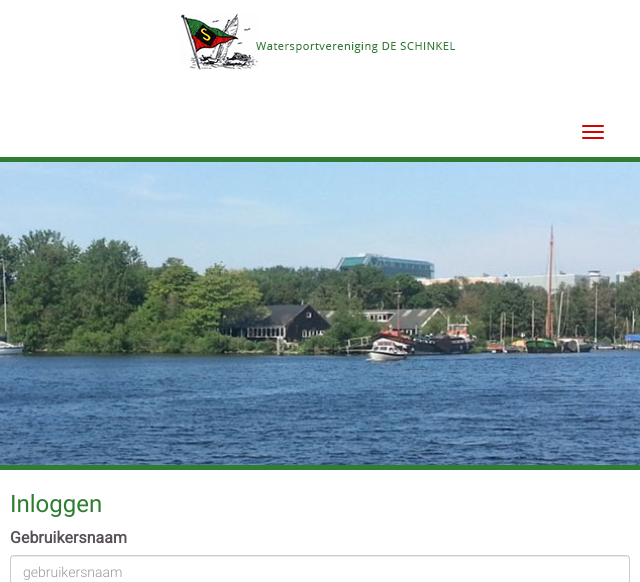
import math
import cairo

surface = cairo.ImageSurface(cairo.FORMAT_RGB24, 640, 582)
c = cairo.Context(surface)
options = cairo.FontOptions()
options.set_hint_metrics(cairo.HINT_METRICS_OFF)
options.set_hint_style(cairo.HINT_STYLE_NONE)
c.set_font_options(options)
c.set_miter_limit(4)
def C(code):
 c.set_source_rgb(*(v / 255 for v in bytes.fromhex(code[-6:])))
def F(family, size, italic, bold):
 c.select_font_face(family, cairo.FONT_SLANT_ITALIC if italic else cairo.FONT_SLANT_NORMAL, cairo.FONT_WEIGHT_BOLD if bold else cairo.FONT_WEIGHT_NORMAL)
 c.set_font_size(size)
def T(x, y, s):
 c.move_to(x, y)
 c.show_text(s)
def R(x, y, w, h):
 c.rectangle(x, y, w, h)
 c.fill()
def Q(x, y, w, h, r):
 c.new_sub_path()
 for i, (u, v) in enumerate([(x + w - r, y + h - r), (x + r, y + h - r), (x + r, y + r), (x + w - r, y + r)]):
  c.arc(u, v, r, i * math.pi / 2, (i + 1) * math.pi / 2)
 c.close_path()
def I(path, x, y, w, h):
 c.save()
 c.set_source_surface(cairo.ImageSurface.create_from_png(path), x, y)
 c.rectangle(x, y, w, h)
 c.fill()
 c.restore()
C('ffffff')
c.paint()
I('1.png',179,13,277,57)
C('d50000')
Q(582,125,22,2,1)
c.fill()
Q(582,131,22,2,1)
c.fill()
Q(582,137,22,2,1)
c.fill()
I('2.png',0,162,640,303)
C('2e7d32')
R(0,157,640,5)
R(0,465,640,5)
F('Roboto',24,0,0)
T(10,512,'Inloggen')
F('Roboto',16,0,1)
C('575057')
T(10,543,'Gebruikersnaam')
C('ececec')
c.new_path()
c.move_to(14,557)
c.line_to(626,557)
c.curve_to(628,557,629,558,629,560)
c.line_to(629,559)
c.curve_to(629,557,628,556,626,556)
c.line_to(14,556)
c.curve_to(12,556,11,557,11,559)
c.line_to(11,560)
c.curve_to(11,558,12,557,14,557)
c.close_path()
c.fill()
Q(10.5,555.5,619,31,3.5)
C('cccccc')
c.set_line_width(1)
c.stroke()
F('Roboto Light',14,0,0)
C('999999')
T(23,577,'gebruikersnaam')
surface.write_to_png('o.png')
